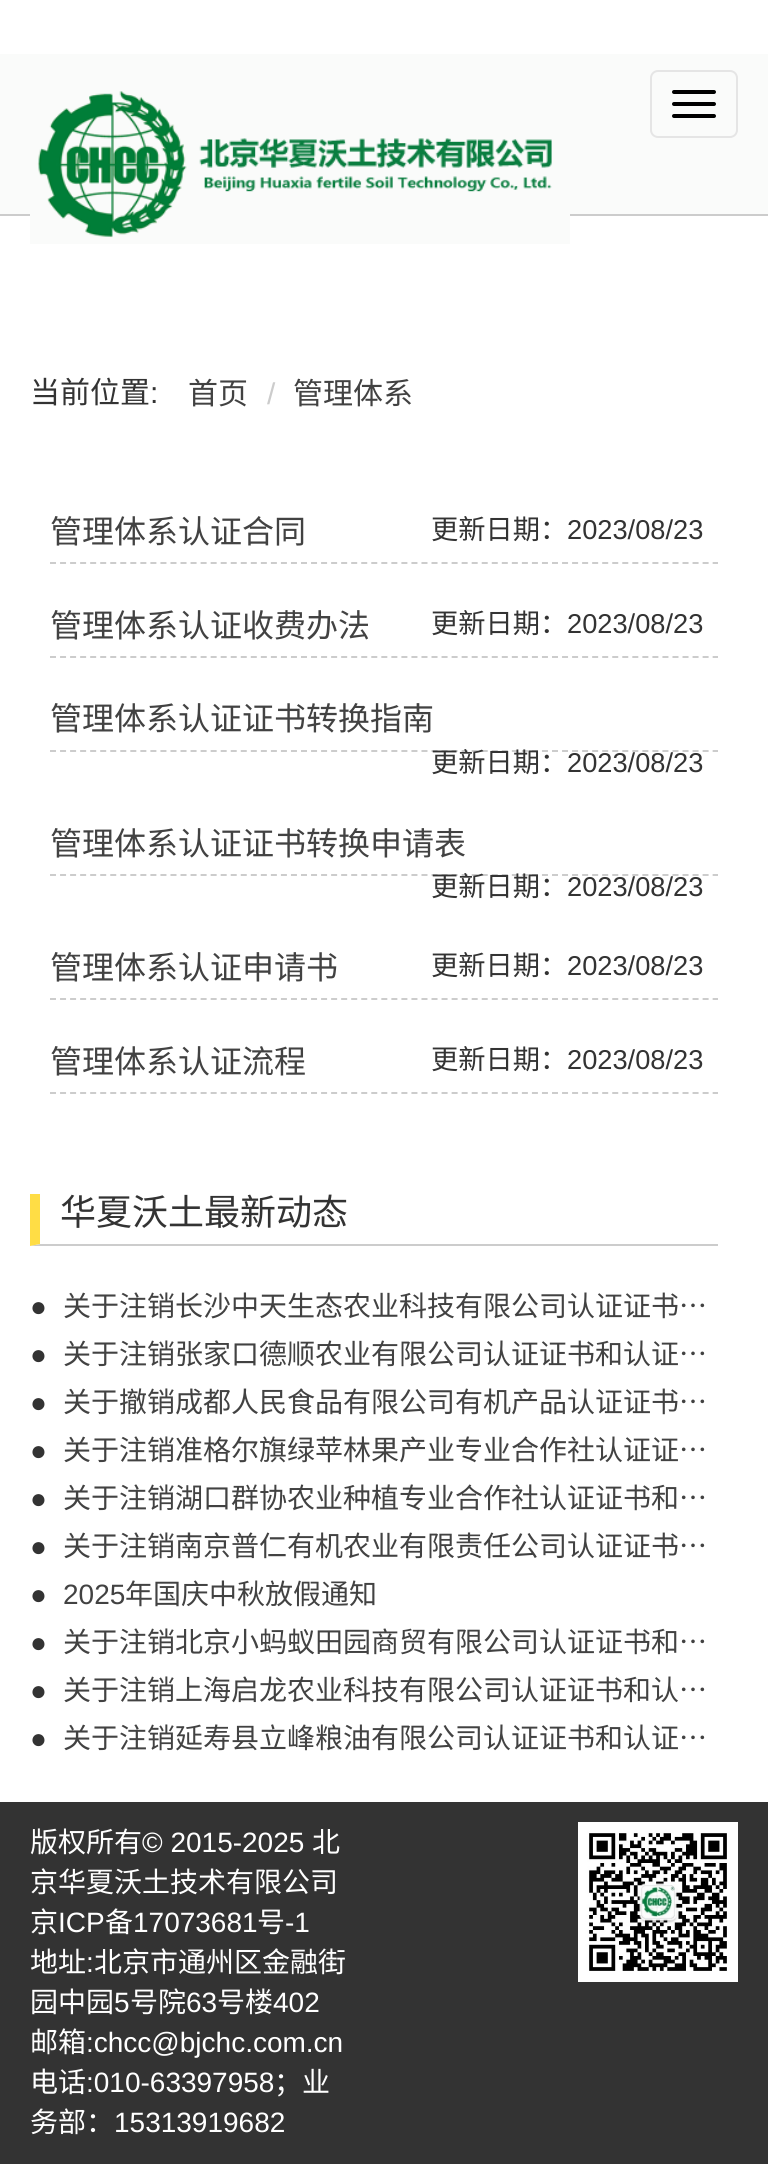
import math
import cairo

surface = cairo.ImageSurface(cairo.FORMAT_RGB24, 768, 2164)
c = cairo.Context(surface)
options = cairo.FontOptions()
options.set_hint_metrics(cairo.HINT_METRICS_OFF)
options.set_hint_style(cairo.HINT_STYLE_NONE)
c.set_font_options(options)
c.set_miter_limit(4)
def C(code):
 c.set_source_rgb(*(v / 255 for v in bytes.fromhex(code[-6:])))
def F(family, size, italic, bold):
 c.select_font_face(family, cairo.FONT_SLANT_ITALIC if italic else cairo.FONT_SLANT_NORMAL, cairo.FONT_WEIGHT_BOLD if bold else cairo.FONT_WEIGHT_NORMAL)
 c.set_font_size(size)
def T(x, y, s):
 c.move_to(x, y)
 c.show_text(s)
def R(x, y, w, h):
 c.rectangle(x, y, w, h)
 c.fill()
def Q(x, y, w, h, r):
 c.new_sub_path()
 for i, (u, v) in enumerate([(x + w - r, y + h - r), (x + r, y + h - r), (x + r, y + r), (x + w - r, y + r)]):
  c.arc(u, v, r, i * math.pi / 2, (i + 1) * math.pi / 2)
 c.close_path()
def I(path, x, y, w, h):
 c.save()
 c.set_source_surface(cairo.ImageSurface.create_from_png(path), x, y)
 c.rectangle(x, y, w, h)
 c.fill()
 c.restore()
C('ffffff')
c.paint()
C('fafbfa')
R(0,54,768,160)
C('cccccc')
R(0,214,768,2)
I('1.png',30,91,540,153)
Q(651,71,86,66,7)
C('e5e5e5')
c.stroke()
C('000000')
Q(672,90,44,4,2)
c.fill()
Q(672,102,44,4,2)
c.fill()
Q(672,114,44,4,2)
c.fill()
F('Noto Sans CJK SC',30,0,0)
C('333333')
T(30,403,'当前位置')
F('Liberation Sans',30,0,0)
T(150,403,':')
F('Noto Sans CJK SC',30,0,0)
C('424242')
T(188,404,'首页')
F('Liberation Sans',30,0,0)
C('cccccc')
T(267,404,'/')
F('Noto Sans CJK SC',30,0,0)
C('424242')
T(293,404,'管理体系')
c.new_path()
c.move_to(50,563)
c.line_to(718,563)
C('cccccc')
c.set_dash([6,4.04])
c.stroke()
F('Noto Sans CJK SC',32,0,0)
C('424242')
T(50,543,'管理体系认证合同')
F('Noto Sans CJK SC',27.25,0,0)
C('333333')
T(431,539,'更新日期：')
F('Liberation Sans',27.25,0,0)
T(567,539,'2023/08/23')
c.new_path()
c.move_to(50,657)
c.line_to(718,657)
C('cccccc')
c.stroke()
F('Noto Sans CJK SC',32,0,0)
C('424242')
T(50,637,'管理体系认证收费办法')
F('Noto Sans CJK SC',27.25,0,0)
C('333333')
T(431,633,'更新日期：')
F('Liberation Sans',27.25,0,0)
T(567,633,'2023/08/23')
c.new_path()
c.move_to(50,751)
c.line_to(718,751)
C('cccccc')
c.stroke()
F('Noto Sans CJK SC',32,0,0)
C('424242')
T(50,730,'管理体系认证证书转换指南')
F('Noto Sans CJK SC',27.25,0,0)
C('333333')
T(431,772,'更新日期：')
F('Liberation Sans',27.25,0,0)
T(567,772,'2023/08/23')
c.new_path()
c.move_to(50,875)
c.line_to(718,875)
C('cccccc')
c.stroke()
F('Noto Sans CJK SC',32,0,0)
C('424242')
T(50,855,'管理体系认证证书转换申请表')
F('Noto Sans CJK SC',27.25,0,0)
C('333333')
T(431,896,'更新日期：')
F('Liberation Sans',27.25,0,0)
T(567,896,'2023/08/23')
c.new_path()
c.move_to(50,999)
c.line_to(718,999)
C('cccccc')
c.stroke()
F('Noto Sans CJK SC',32,0,0)
C('424242')
T(50,979,'管理体系认证申请书')
F('Noto Sans CJK SC',27.25,0,0)
C('333333')
T(431,975,'更新日期：')
F('Liberation Sans',27.25,0,0)
T(567,975,'2023/08/23')
c.new_path()
c.move_to(50,1093)
c.line_to(718,1093)
C('cccccc')
c.stroke()
F('Noto Sans CJK SC',32,0,0)
C('424242')
T(50,1073,'管理体系认证流程')
F('Noto Sans CJK SC',27.25,0,0)
C('333333')
T(431,1069,'更新日期：')
F('Liberation Sans',27.25,0,0)
T(567,1069,'2023/08/23')
C('cccccc')
c.new_path()
c.move_to(718,1246)
c.line_to(30,1246)
c.line_to(40,1244)
c.line_to(718,1244)
c.close_path()
c.fill()
C('ffdd45')
c.new_path()
c.move_to(30,1246)
c.line_to(30,1194)
c.line_to(40,1194)
c.line_to(40,1244)
c.close_path()
c.fill()
F('Noto Sans CJK SC',36,0,0)
C('333333')
T(60,1225,'华夏沃土最新动态')
F('Liberation Sans',28,0,0)
T(30,1316,'●')
F('Noto Sans CJK SC',28,0,0)
C('424242')
T(63,1316,'关于注销长沙中天生态农业科技有限公司认证证书…')
F('Liberation Sans',28,0,0)
C('333333')
T(30,1364,'●')
F('Noto Sans CJK SC',28,0,0)
C('424242')
T(63,1364,'关于注销张家口德顺农业有限公司认证证书和认证…')
F('Liberation Sans',28,0,0)
C('333333')
T(30,1412,'●')
F('Noto Sans CJK SC',28,0,0)
C('424242')
T(63,1412,'关于撤销成都人民食品有限公司有机产品认证证书…')
F('Liberation Sans',28,0,0)
C('333333')
T(30,1460,'●')
F('Noto Sans CJK SC',28,0,0)
C('424242')
T(63,1460,'关于注销准格尔旗绿苹林果产业专业合作社认证证…')
F('Liberation Sans',28,0,0)
C('333333')
T(30,1508,'●')
F('Noto Sans CJK SC',28,0,0)
C('424242')
T(63,1508,'关于注销湖口群协农业种植专业合作社认证证书和…')
F('Liberation Sans',28,0,0)
C('333333')
T(30,1556,'●')
F('Noto Sans CJK SC',28,0,0)
C('424242')
T(63,1556,'关于注销南京普仁有机农业有限责任公司认证证书…')
F('Liberation Sans',28,0,0)
C('333333')
T(30,1604,'●')
C('424242')
T(63,1604,'2025')
F('Noto Sans CJK SC',28,0,0)
T(125,1604,'年国庆中秋放假通知')
F('Liberation Sans',28,0,0)
C('333333')
T(30,1652,'●')
F('Noto Sans CJK SC',28,0,0)
C('424242')
T(63,1652,'关于注销北京小蚂蚁田园商贸有限公司认证证书和…')
F('Liberation Sans',28,0,0)
C('333333')
T(30,1700,'●')
F('Noto Sans CJK SC',28,0,0)
C('424242')
T(63,1700,'关于注销上海启龙农业科技有限公司认证证书和认…')
F('Liberation Sans',28,0,0)
C('333333')
T(30,1748,'●')
F('Noto Sans CJK SC',28,0,0)
C('424242')
T(63,1748,'关于注销延寿县立峰粮油有限公司认证证书和认证…')
C('333333')
R(0,1802,768,362)
C('ffffff')
T(30,1852,'版权所有')
F('Liberation Sans',28,0,0)
T(142,1852,'© 2015-2025')
F('Noto Sans CJK SC',28,0,0)
T(312,1852,'北')
T(30,1892,'京华夏沃土技术有限公司')
T(30,1932,'京')
F('Liberation Sans',28,0,0)
T(58,1932,'ICP')
F('Noto Sans CJK SC',28,0,0)
T(105,1932,'备')
F('Liberation Sans',28,0,0)
T(133,1932,'17073681')
F('Noto Sans CJK SC',28,0,0)
T(257,1932,'号')
F('Liberation Sans',28,0,0)
T(285,1932,'-1')
F('Noto Sans CJK SC',28,0,0)
T(30,1972,'地址')
F('Liberation Sans',28,0,0)
T(86,1972,':')
F('Noto Sans CJK SC',28,0,0)
T(94,1972,'北京市通州区金融街')
T(30,2012,'园中园')
F('Liberation Sans',28,0,0)
T(114,2012,'5')
F('Noto Sans CJK SC',28,0,0)
T(130,2012,'号院')
F('Liberation Sans',28,0,0)
T(186,2012,'63')
F('Noto Sans CJK SC',28,0,0)
T(217,2012,'号楼')
F('Liberation Sans',28,0,0)
T(273,2012,'402')
F('Noto Sans CJK SC',28,0,0)
T(30,2052,'邮箱')
F('Liberation Sans',28,0,0)
T(86,2052,':chcc@bjchc.com.cn')
F('Noto Sans CJK SC',28,0,0)
T(30,2092,'电话')
F('Liberation Sans',28,0,0)
T(86,2092,':010-63397958')
F('Noto Sans CJK SC',28,0,0)
T(274,2092,'；业')
T(30,2132,'务部：')
F('Liberation Sans',28,0,0)
T(114,2132,'15313919682')
I('2.png',578,1822,160,160)
surface.write_to_png('o.png')
